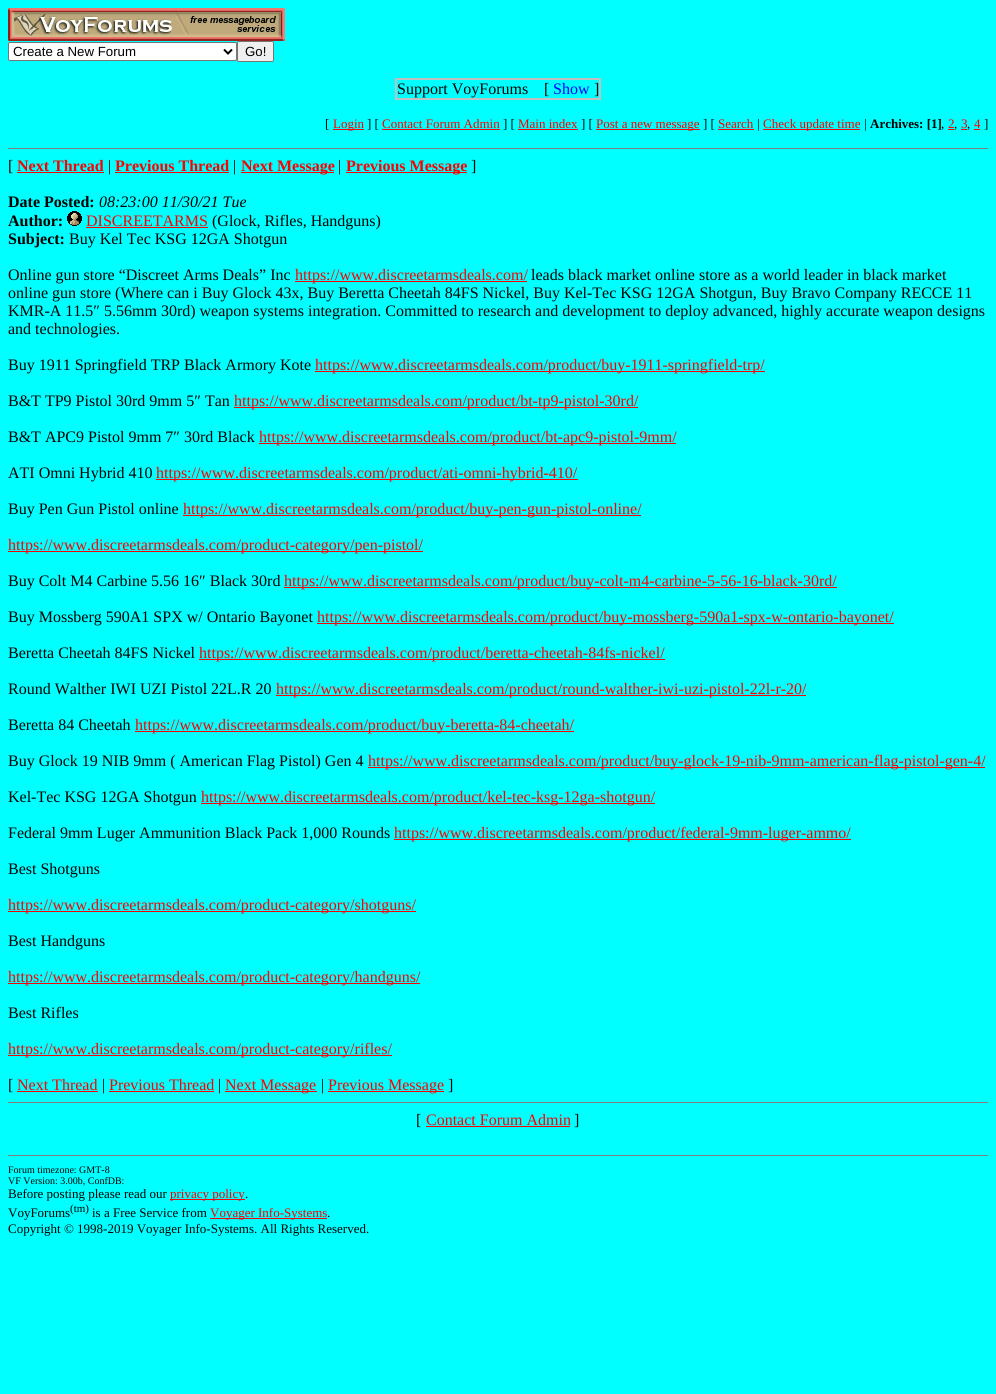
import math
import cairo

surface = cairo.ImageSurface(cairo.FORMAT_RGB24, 996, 1394)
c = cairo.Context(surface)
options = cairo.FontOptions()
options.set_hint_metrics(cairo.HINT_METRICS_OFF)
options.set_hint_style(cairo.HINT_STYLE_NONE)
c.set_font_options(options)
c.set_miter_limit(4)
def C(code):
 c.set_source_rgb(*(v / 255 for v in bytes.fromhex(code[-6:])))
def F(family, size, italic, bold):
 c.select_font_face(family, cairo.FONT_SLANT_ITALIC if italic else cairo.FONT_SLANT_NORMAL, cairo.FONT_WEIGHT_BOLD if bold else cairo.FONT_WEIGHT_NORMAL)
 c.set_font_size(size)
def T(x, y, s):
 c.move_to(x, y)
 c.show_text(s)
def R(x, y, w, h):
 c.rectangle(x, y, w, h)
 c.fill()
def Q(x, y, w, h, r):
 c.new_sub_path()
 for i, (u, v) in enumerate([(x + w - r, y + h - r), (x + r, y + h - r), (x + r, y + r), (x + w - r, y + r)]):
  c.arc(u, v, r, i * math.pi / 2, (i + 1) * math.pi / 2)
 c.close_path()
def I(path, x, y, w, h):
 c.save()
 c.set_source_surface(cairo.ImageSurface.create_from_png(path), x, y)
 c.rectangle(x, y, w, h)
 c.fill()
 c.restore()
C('00ffff')
c.paint()
I('1.png',8,8,277,33)
C('ffffff')
Q(8.5,42.5,228,18,1.5)
c.fill_preserve()
C('767676')
c.set_line_width(1)
c.stroke()
c.new_path()
c.move_to(224,49.5)
c.line_to(228,53.5)
c.line_to(232,49.5)
C('000000')
c.set_line_width(2)
c.stroke()
F('Liberation Sans',13.25,0,0)
T(13,56,'Create a New Forum')
C('efefef')
Q(237.5,41.5,36,20,1.5)
c.fill_preserve()
C('767676')
c.set_line_width(1)
c.stroke()
C('000000')
T(245,56,'Go!')
c.rectangle(396,79,204,20)
C('c0c0c0')
c.set_line_width(2)
c.stroke()
F('Liberation Serif',16,0,0)
C('000000')
T(397,94,'Support VoyForums')
T(544,94,'[')
C('0000ff')
T(553,94,'Show')
C('000000')
T(594,94,']')
F('Liberation Serif',13,0,0)
T(325,128,'[')
C('ff0000')
R(333,129,31,1)
T(333,128,'Login')
C('000000')
T(367,128,'] [')
C('ff0000')
T(382,128,'Contact Forum Admin')
R(382,129,118,1)
C('000000')
T(503,128,'] [')
C('ff0000')
T(518,128,'Main index')
R(518,129,60,1)
C('000000')
T(581,128,'] [')
C('ff0000')
R(596,129,104,1)
T(596,128,'Post a new message')
C('000000')
T(703,128,'] [')
C('ff0000')
T(718,128,'Search')
R(718,129,36,1)
C('000000')
T(757,128,'|')
C('ff0000')
R(763,129,97,1)
T(763,128,'Check update time')
C('000000')
T(864,128,'|')
F('Liberation Serif',13,0,1)
T(870,128,'Archives: [1]')
F('Liberation Serif',13,0,0)
T(941,128,',')
C('ff0000')
T(948,128,'2')
C('000000')
T(954,128,',')
C('ff0000')
R(948,129,6,1)
T(961,128,'3')
C('000000')
T(967,128,',')
C('ff0000')
R(961,129,6,1)
R(974,129,6,1)
T(974,128,'4')
C('000000')
T(984,128,']')
C('808080')
R(8,148,980,1)
F('Liberation Serif',16,0,0)
C('000000')
T(8,171,'[')
F('Liberation Serif',16,0,1)
C('ff0000')
T(17,171,'Next Thread')
R(17,172,87,1)
F('Liberation Serif',16,0,0)
C('000000')
T(108,171,'|')
F('Liberation Serif',16,0,1)
C('ff0000')
T(115,171,'Previous Thread')
R(115,172,114,1)
F('Liberation Serif',16,0,0)
C('000000')
T(233,171,'|')
C('ff0000')
R(241,172,93,1)
F('Liberation Serif',16,0,1)
T(241,171,'Next Message')
F('Liberation Serif',16,0,0)
C('000000')
T(338,171,'|')
C('ff0000')
R(346,172,121,1)
F('Liberation Serif',16,0,1)
T(346,171,'Previous Message')
F('Liberation Serif',16,0,0)
C('000000')
T(471,171,']')
F('Liberation Serif',16,0,1)
T(8,207,'Date Posted:')
F('Liberation Serif',16,1,0)
T(99,207,'08:23:00 11/30/21 Tue')
F('Liberation Serif',16,0,1)
T(8,226,'Author:')
I('2.png',67,211,15,15)
F('Liberation Serif',16,0,0)
C('ff0000')
T(86,226,'DISCREETARMS')
R(86,227,122,1)
C('000000')
T(212,226,'(Glock, Rifles, Handguns)')
F('Liberation Serif',16,0,1)
T(8,244,'Subject:')
F('Liberation Serif',16,0,0)
T(69,244,'Buy Kel Tec KSG 12GA Shotgun')
T(8,280,'Online gun store “Discreet Arms Deals” Inc')
C('ff0000')
R(295,281,232,1)
T(295,280,'https://www.discreetarmsdeals.com/')
C('000000')
T(531,280,'leads black market online store as a world leader in black market')
T(8,298,'online gun store (Where can i Buy Glock 43x, Buy Beretta Cheetah 84FS Nickel, Buy Kel-Tec KSG 12GA Shotgun, Buy Bravo Company RECCE 11')
T(8,316,'KMR-A 11.5″ 5.56mm 30rd) weapon systems integration. Committed to research and development to deploy advanced, highly accurate weapon designs')
T(8,334,'and technologies.')
T(8,370,'Buy 1911 Springfield TRP Black Armory Kote')
C('ff0000')
R(315,371,450,1)
T(315,370,'https://www.discreetarmsdeals.com/product/buy-1911-springfield-trp/')
C('000000')
T(8,406,'B&T TP9 Pistol 30rd 9mm 5″ Tan')
C('ff0000')
R(234,407,404,1)
T(234,406,'https://www.discreetarmsdeals.com/product/bt-tp9-pistol-30rd/')
C('000000')
T(8,442,'B&T APC9 Pistol 9mm 7″ 30rd Black')
C('ff0000')
R(259,443,417,1)
T(259,442,'https://www.discreetarmsdeals.com/product/bt-apc9-pistol-9mm/')
C('000000')
T(8,478,'ATI Omni Hybrid 410')
C('ff0000')
R(156,479,422,1)
T(156,478,'https://www.discreetarmsdeals.com/product/ati-omni-hybrid-410/')
C('000000')
T(8,514,'Buy Pen Gun Pistol online')
C('ff0000')
R(183,515,458,1)
T(183,514,'https://www.discreetarmsdeals.com/product/buy-pen-gun-pistol-online/')
R(8,551,415,1)
T(8,550,'https://www.discreetarmsdeals.com/product-category/pen-pistol/')
C('000000')
T(8,586,'Buy Colt M4 Carbine 5.56 16″ Black 30rd')
C('ff0000')
R(284,587,553,1)
T(284,586,'https://www.discreetarmsdeals.com/product/buy-colt-m4-carbine-5-56-16-black-30rd/')
C('000000')
T(8,622,'Buy Mossberg 590A1 SPX w/ Ontario Bayonet')
C('ff0000')
R(317,623,577,1)
T(317,622,'https://www.discreetarmsdeals.com/product/buy-mossberg-590a1-spx-w-ontario-bayonet/')
C('000000')
T(8,658,'Beretta Cheetah 84FS Nickel')
C('ff0000')
R(199,659,466,1)
T(199,658,'https://www.discreetarmsdeals.com/product/beretta-cheetah-84fs-nickel/')
C('000000')
T(8,694,'Round Walther IWI UZI Pistol 22L.R 20')
C('ff0000')
R(276,695,530,1)
T(276,694,'https://www.discreetarmsdeals.com/product/round-walther-iwi-uzi-pistol-22l-r-20/')
C('000000')
T(8,730,'Beretta 84 Cheetah')
C('ff0000')
R(135,731,439,1)
T(135,730,'https://www.discreetarmsdeals.com/product/buy-beretta-84-cheetah/')
C('000000')
T(8,766,'Buy Glock 19 NIB 9mm ( American Flag Pistol) Gen 4')
C('ff0000')
R(368,767,617,1)
T(368,766,'https://www.discreetarmsdeals.com/product/buy-glock-19-nib-9mm-american-flag-pistol-gen-4/')
C('000000')
T(8,802,'Kel-Tec KSG 12GA Shotgun')
C('ff0000')
R(201,803,454,1)
T(201,802,'https://www.discreetarmsdeals.com/product/kel-tec-ksg-12ga-shotgun/')
C('000000')
T(8,838,'Federal 9mm Luger Ammunition Black Pack 1,000 Rounds')
C('ff0000')
R(394,839,457,1)
T(394,838,'https://www.discreetarmsdeals.com/product/federal-9mm-luger-ammo/')
C('000000')
T(8,874,'Best Shotguns')
C('ff0000')
R(8,911,408,1)
T(8,910,'https://www.discreetarmsdeals.com/product-category/shotguns/')
C('000000')
T(8,946,'Best Handguns')
C('ff0000')
R(8,983,412,1)
T(8,982,'https://www.discreetarmsdeals.com/product-category/handguns/')
C('000000')
T(8,1018,'Best Rifles')
C('ff0000')
R(8,1055,384,1)
T(8,1054,'https://www.discreetarmsdeals.com/product-category/rifles/')
C('000000')
T(8,1090,'[')
C('ff0000')
T(17,1090,'Next Thread')
R(17,1091,81,1)
C('000000')
T(102,1090,'|')
C('ff0000')
T(109,1090,'Previous Thread')
R(109,1091,105,1)
C('000000')
T(218,1090,'|')
C('ff0000')
R(225,1091,92,1)
T(225,1090,'Next Message')
C('000000')
T(321,1090,'|')
C('ff0000')
R(328,1091,116,1)
T(328,1090,'Previous Message')
C('000000')
T(448,1090,']')
C('808080')
R(8,1102,980,1)
C('000000')
T(416,1125,'[')
C('ff0000')
T(426,1125,'Contact Forum Admin')
R(426,1126,144,1)
C('000000')
T(574,1125,']')
C('808080')
R(8,1155,980,1)
F('Liberation Serif',10,0,0)
C('000000')
T(8,1173,'Forum timezone: GMT-8')
T(8,1184,'VF Version: 3.00b, ConfDB:')
F('Liberation Serif',13,0,0)
T(8,1198,'Before posting please read our')
C('ff0000')
R(170,1199,75,1)
T(170,1198,'privacy policy')
C('000000')
T(245,1198,'.')
T(8,1217,'VoyForums')
F('Liberation Serif',11,0,0)
T(70,1212,'(tm)')
F('Liberation Serif',13,0,0)
T(92,1217,'is a Free Service from')
C('ff0000')
R(210,1218,117,1)
T(210,1217,'Voyager Info-Systems')
C('000000')
T(327,1217,'.')
T(8,1233,'Copyright © 1998-2019 Voyager Info-Systems. All Rights Reserved.')
surface.write_to_png('o.png')
